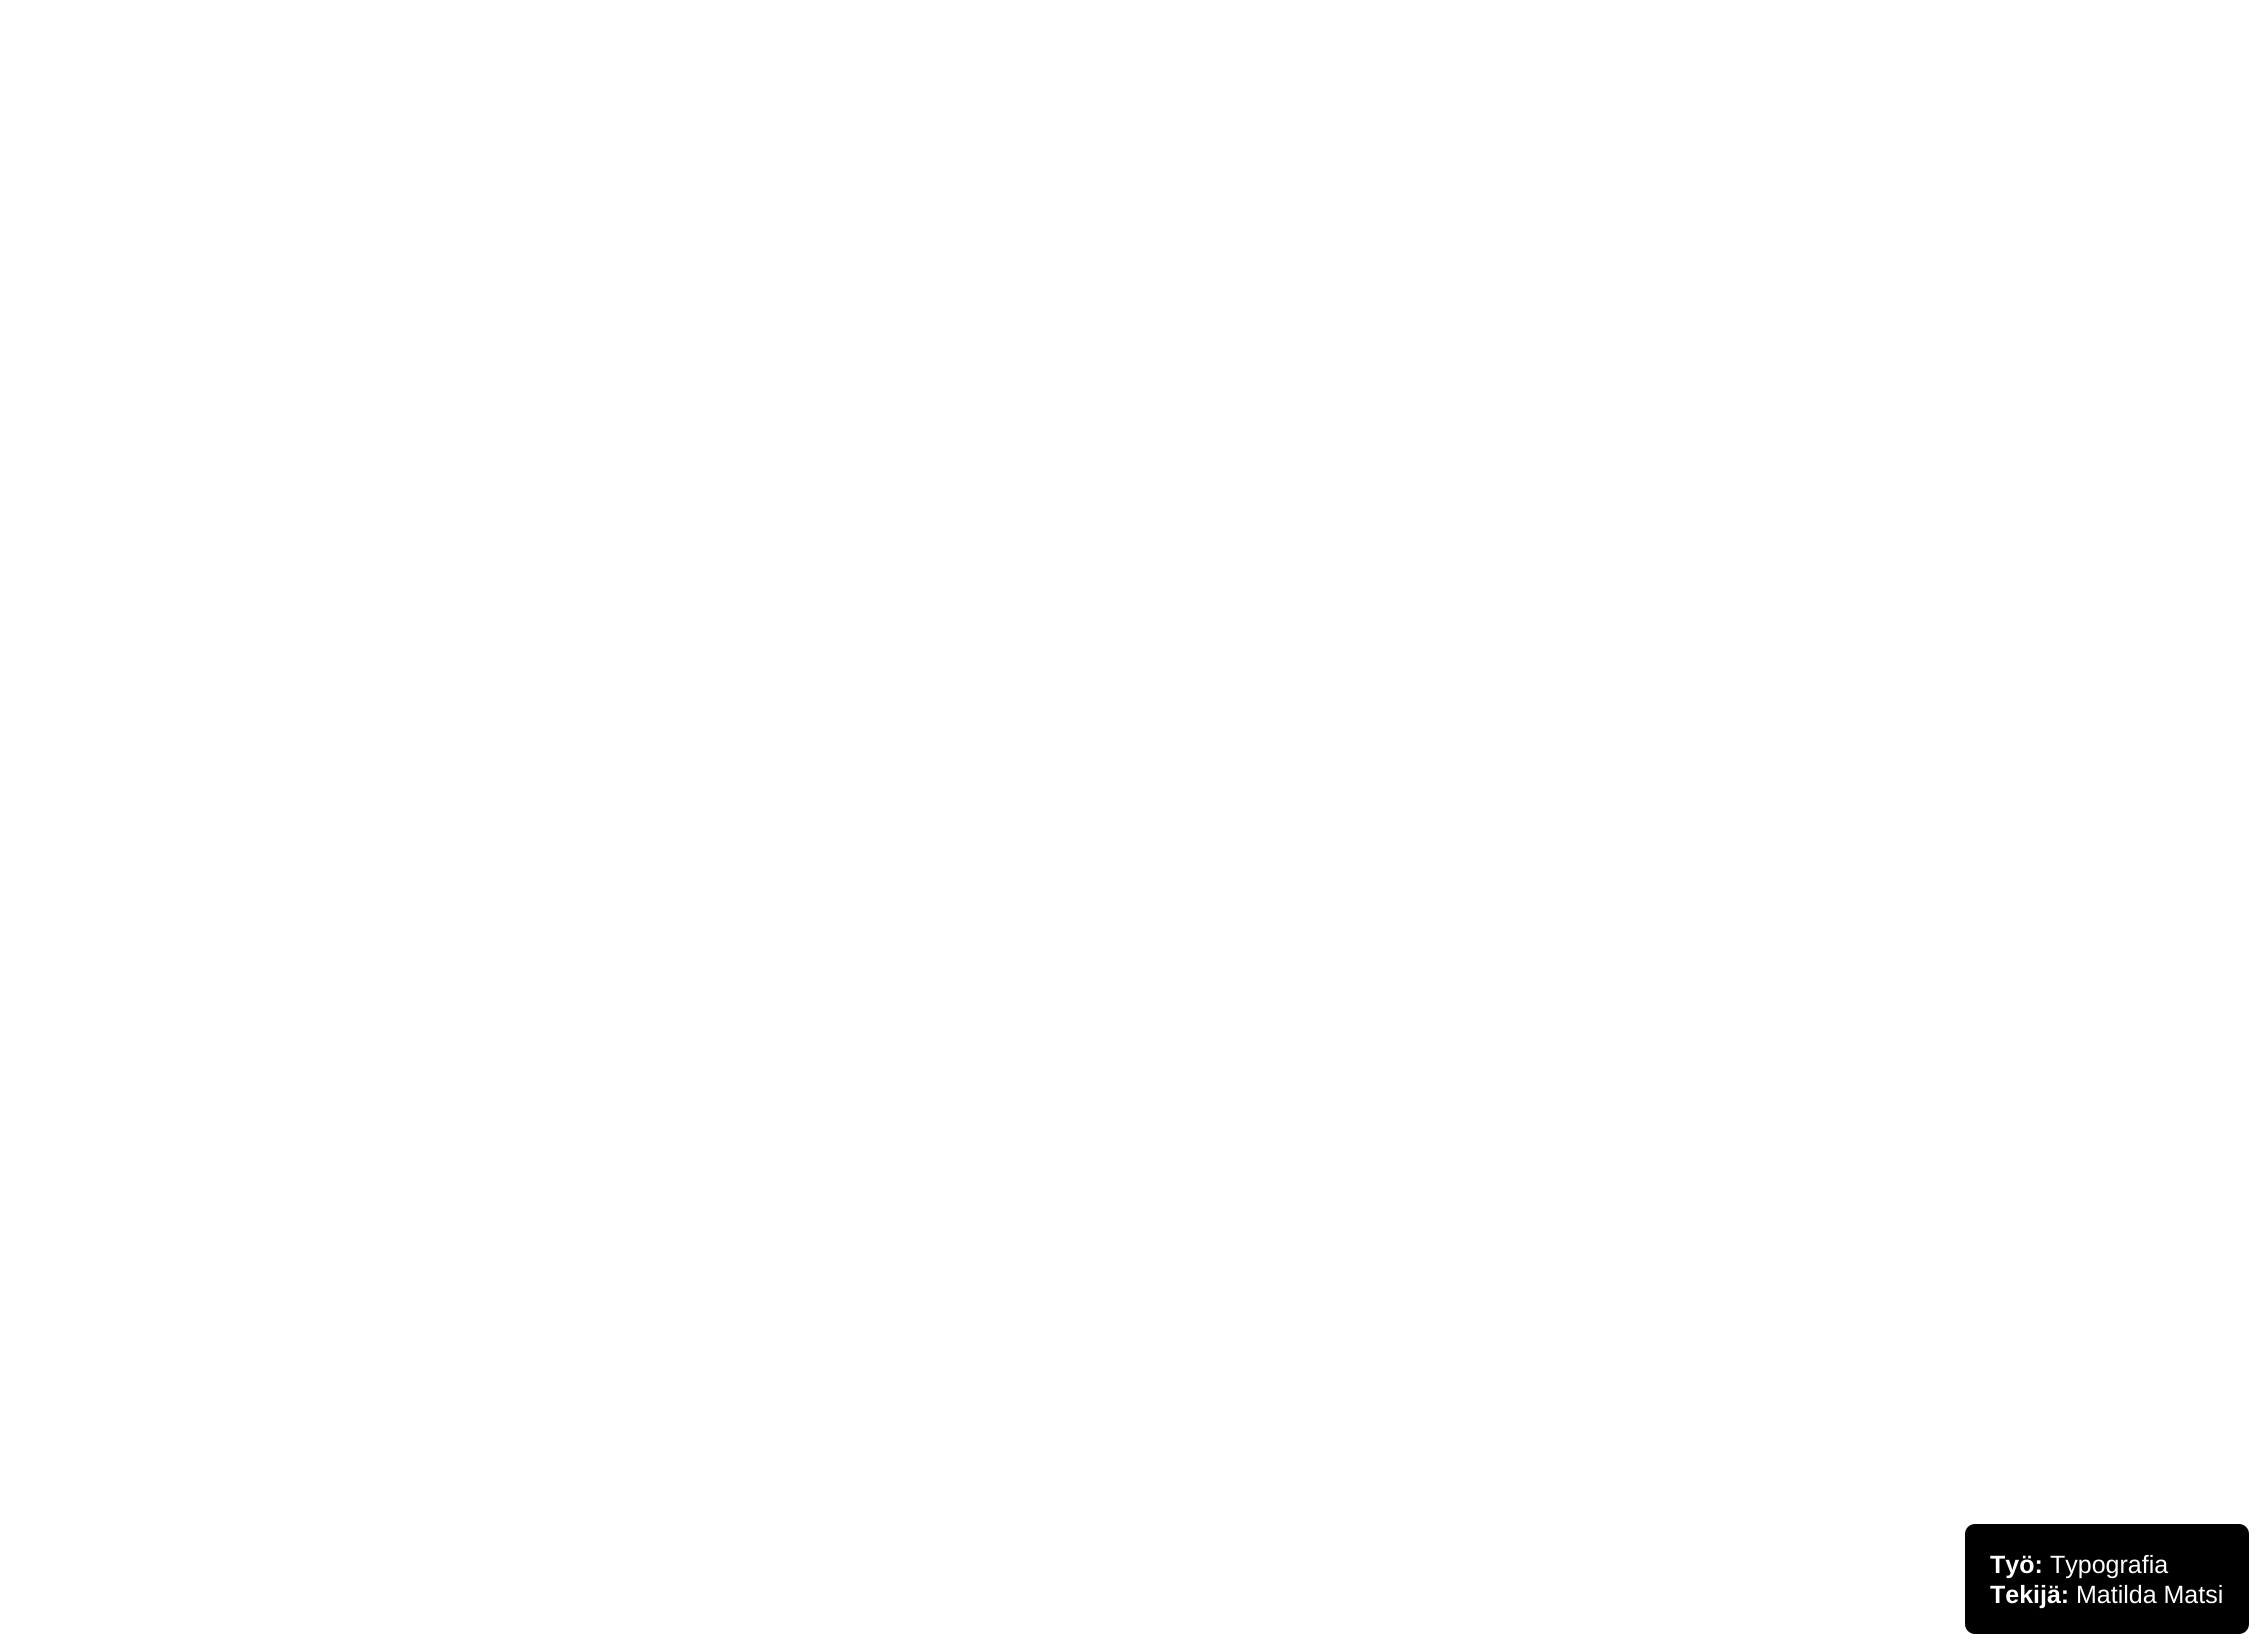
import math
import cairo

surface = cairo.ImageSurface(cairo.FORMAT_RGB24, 2261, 1646)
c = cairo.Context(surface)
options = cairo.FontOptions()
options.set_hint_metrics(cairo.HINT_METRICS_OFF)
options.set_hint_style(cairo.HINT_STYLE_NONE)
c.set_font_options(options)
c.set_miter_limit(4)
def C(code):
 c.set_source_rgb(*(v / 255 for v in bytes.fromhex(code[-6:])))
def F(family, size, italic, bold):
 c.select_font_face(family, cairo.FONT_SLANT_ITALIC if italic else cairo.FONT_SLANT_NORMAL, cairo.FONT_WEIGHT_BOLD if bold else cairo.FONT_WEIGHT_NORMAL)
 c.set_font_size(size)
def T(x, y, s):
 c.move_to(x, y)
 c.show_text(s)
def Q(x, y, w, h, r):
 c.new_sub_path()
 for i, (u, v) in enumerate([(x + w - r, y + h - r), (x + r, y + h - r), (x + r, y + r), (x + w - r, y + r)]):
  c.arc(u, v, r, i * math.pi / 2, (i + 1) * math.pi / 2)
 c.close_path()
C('ffffff')
c.paint()
C('000000')
Q(1965,1524,284,110,10)
c.fill()
F('Liberation Sans',25,0,1)
C('ffffff')
T(1990,1573,'Työ:')
F('Liberation Sans',25,0,0)
T(2050,1573,'Typografia')
F('Liberation Sans',25,0,1)
T(1990,1603,'Tekijä:')
F('Liberation Sans',25,0,0)
T(2076,1603,'Matilda Matsi')
surface.write_to_png('o.png')
